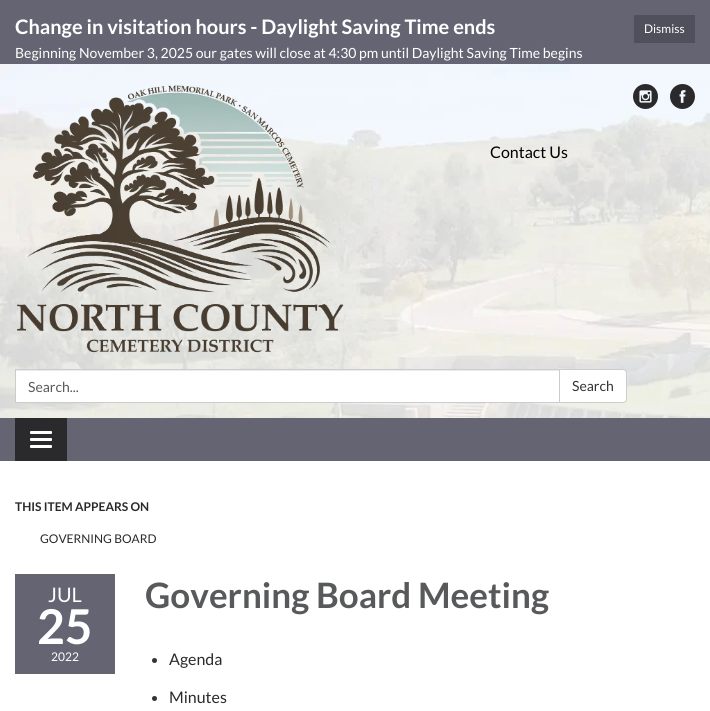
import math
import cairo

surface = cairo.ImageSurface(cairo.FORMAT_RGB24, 710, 711)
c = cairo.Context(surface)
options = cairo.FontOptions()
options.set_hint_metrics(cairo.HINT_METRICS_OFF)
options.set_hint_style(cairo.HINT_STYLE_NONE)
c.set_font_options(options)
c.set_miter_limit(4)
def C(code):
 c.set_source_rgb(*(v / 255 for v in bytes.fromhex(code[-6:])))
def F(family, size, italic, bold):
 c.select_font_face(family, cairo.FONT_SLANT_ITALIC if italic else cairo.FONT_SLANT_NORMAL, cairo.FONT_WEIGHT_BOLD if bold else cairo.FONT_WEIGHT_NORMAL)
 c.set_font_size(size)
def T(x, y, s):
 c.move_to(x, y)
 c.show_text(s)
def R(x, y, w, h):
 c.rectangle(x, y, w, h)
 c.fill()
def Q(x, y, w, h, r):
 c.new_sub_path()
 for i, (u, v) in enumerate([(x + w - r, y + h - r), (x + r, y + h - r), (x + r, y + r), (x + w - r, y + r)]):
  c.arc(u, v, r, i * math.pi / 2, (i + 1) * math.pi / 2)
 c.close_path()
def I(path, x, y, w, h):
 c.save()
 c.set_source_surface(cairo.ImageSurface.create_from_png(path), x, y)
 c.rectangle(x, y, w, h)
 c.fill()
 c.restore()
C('646473')
c.paint()
F('Lato',20,0,1)
C('ffffff')
T(15,34,'Change in visitation hours - Daylight Saving Time ends')
C('50505c')
R(634,15,61,28)
F('Lato',12,0,0)
C('ffffff')
T(644,33,'Dismiss')
F('Lato',14,0,0)
T(15,58,'Beginning November 3, 2025 our gates will close at 4:30 pm until Daylight Saving Time begins')
I('1.png',0,64,710,354)
I('2.png',17,85,327,268)
F('Lato',16,0,0)
C('000000')
T(490,158,'Contact Us')
I('3.png',633,84,25,25)
I('4.png',670,84,25,25)
C('ffffff')
R(16,371,543,31)
C('ececec')
R(16,370,543,1)
c.rectangle(15.5,369.5,544,33)
C('cccccc')
c.set_line_width(1)
c.stroke()
F('Lato',14,0,0)
C('58595b')
T(28,392,'Search...')
C('ffffff')
c.new_path()
c.move_to(559.5,369.5)
c.line_to(623,369.5)
c.curve_to(625,369.5,626.5,371,626.5,373)
c.line_to(626.5,399)
c.curve_to(626.5,401,625,402.5,623,402.5)
c.line_to(559.5,402.5)
c.close_path()
c.fill_preserve()
C('cccccc')
c.stroke()
C('333333')
T(572,391,'Search')
C('2a2a2d')
R(15,418,52,43)
C('ffffff')
Q(30,431,22,3,1)
c.fill()
Q(30,438,22,3,1)
c.fill()
Q(30,445,22,3,1)
c.fill()
R(0,461,710,250)
F('Lato',12,0,1)
C('2a2a2d')
T(15,511,'THIS ITEM APPEARS ON')
F('Lato',12,0,0)
T(40,543,'GOVERNING BOARD')
C('646473')
R(15,574,100,100)
F('Lato',20,0,0)
C('ffffff')
T(48,602,'JUL')
F('Lato',48,0,1)
T(37,644,'25')
F('Lato',12,0,0)
T(51,661,'2022')
F('Lato',35,0,1)
C('58595b')
T(145,608,'Governing Board Meeting')
C('333333')
c.new_path()
c.arc(154.5,660.5,2.5,0,2 * math.pi)
c.fill()
F('Lato',16,0,0)
C('2a2a2d')
T(169,665,'Agenda')
C('333333')
c.new_path()
c.arc(154.5,698.5,2.5,0,2 * math.pi)
c.fill()
C('2a2a2d')
T(169,703,'Minutes')
surface.write_to_png('o.png')
